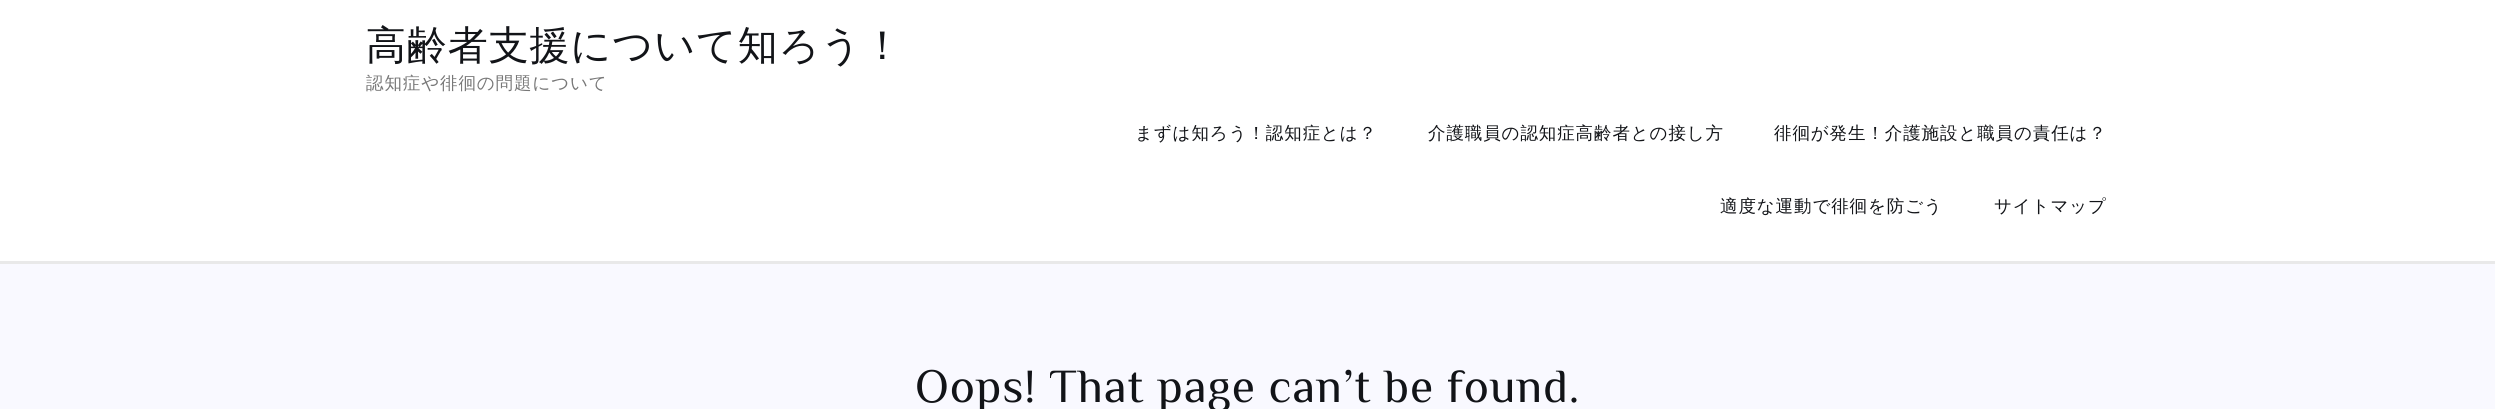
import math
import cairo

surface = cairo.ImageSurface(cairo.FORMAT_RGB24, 2495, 409)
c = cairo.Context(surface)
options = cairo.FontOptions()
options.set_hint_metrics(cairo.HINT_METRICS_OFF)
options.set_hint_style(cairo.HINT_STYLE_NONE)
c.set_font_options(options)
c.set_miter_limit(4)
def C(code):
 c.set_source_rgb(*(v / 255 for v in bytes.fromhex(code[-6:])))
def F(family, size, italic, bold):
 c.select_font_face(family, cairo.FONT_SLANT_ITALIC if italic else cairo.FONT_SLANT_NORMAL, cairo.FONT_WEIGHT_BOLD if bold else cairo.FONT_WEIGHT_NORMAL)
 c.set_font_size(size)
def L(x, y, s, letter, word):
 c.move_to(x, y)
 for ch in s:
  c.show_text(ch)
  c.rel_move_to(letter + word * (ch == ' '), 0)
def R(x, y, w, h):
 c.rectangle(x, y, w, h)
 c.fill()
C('f9f9ff')
c.paint()
C('ffffff')
R(0,0,2495,261)
C('e9e9e9')
R(0,261,2495,3)
F('WenQuanYi Zen Hei Medium',40,0,0)
C('121418')
L(366,59,'高齢者支援について知ろう！',.9,0)
F('WenQuanYi Zen Hei Medium',17.5,0,0)
C('777777')
L(366,89,'認知症や徘徊の問題について',.9,0)
C('121418')
L(1135,139,'まずは知ろう！認知症とは？',.9,0)
L(1428,139,'介護職員の認知症高齢者との接し方',.9,0)
L(1774,139,'徘徊が発生！介護施設と職員の責任は？',.9,0)
L(1720,212,'適度な運動で徘徊を防ごう',.9,0)
L(1994,212,'サイトマップ',.9,0)
F('Philosopher',47.5,0,0)
L(915,402,'Oops! That page can’t be found.',.9,0)
surface.write_to_png('o.png')
